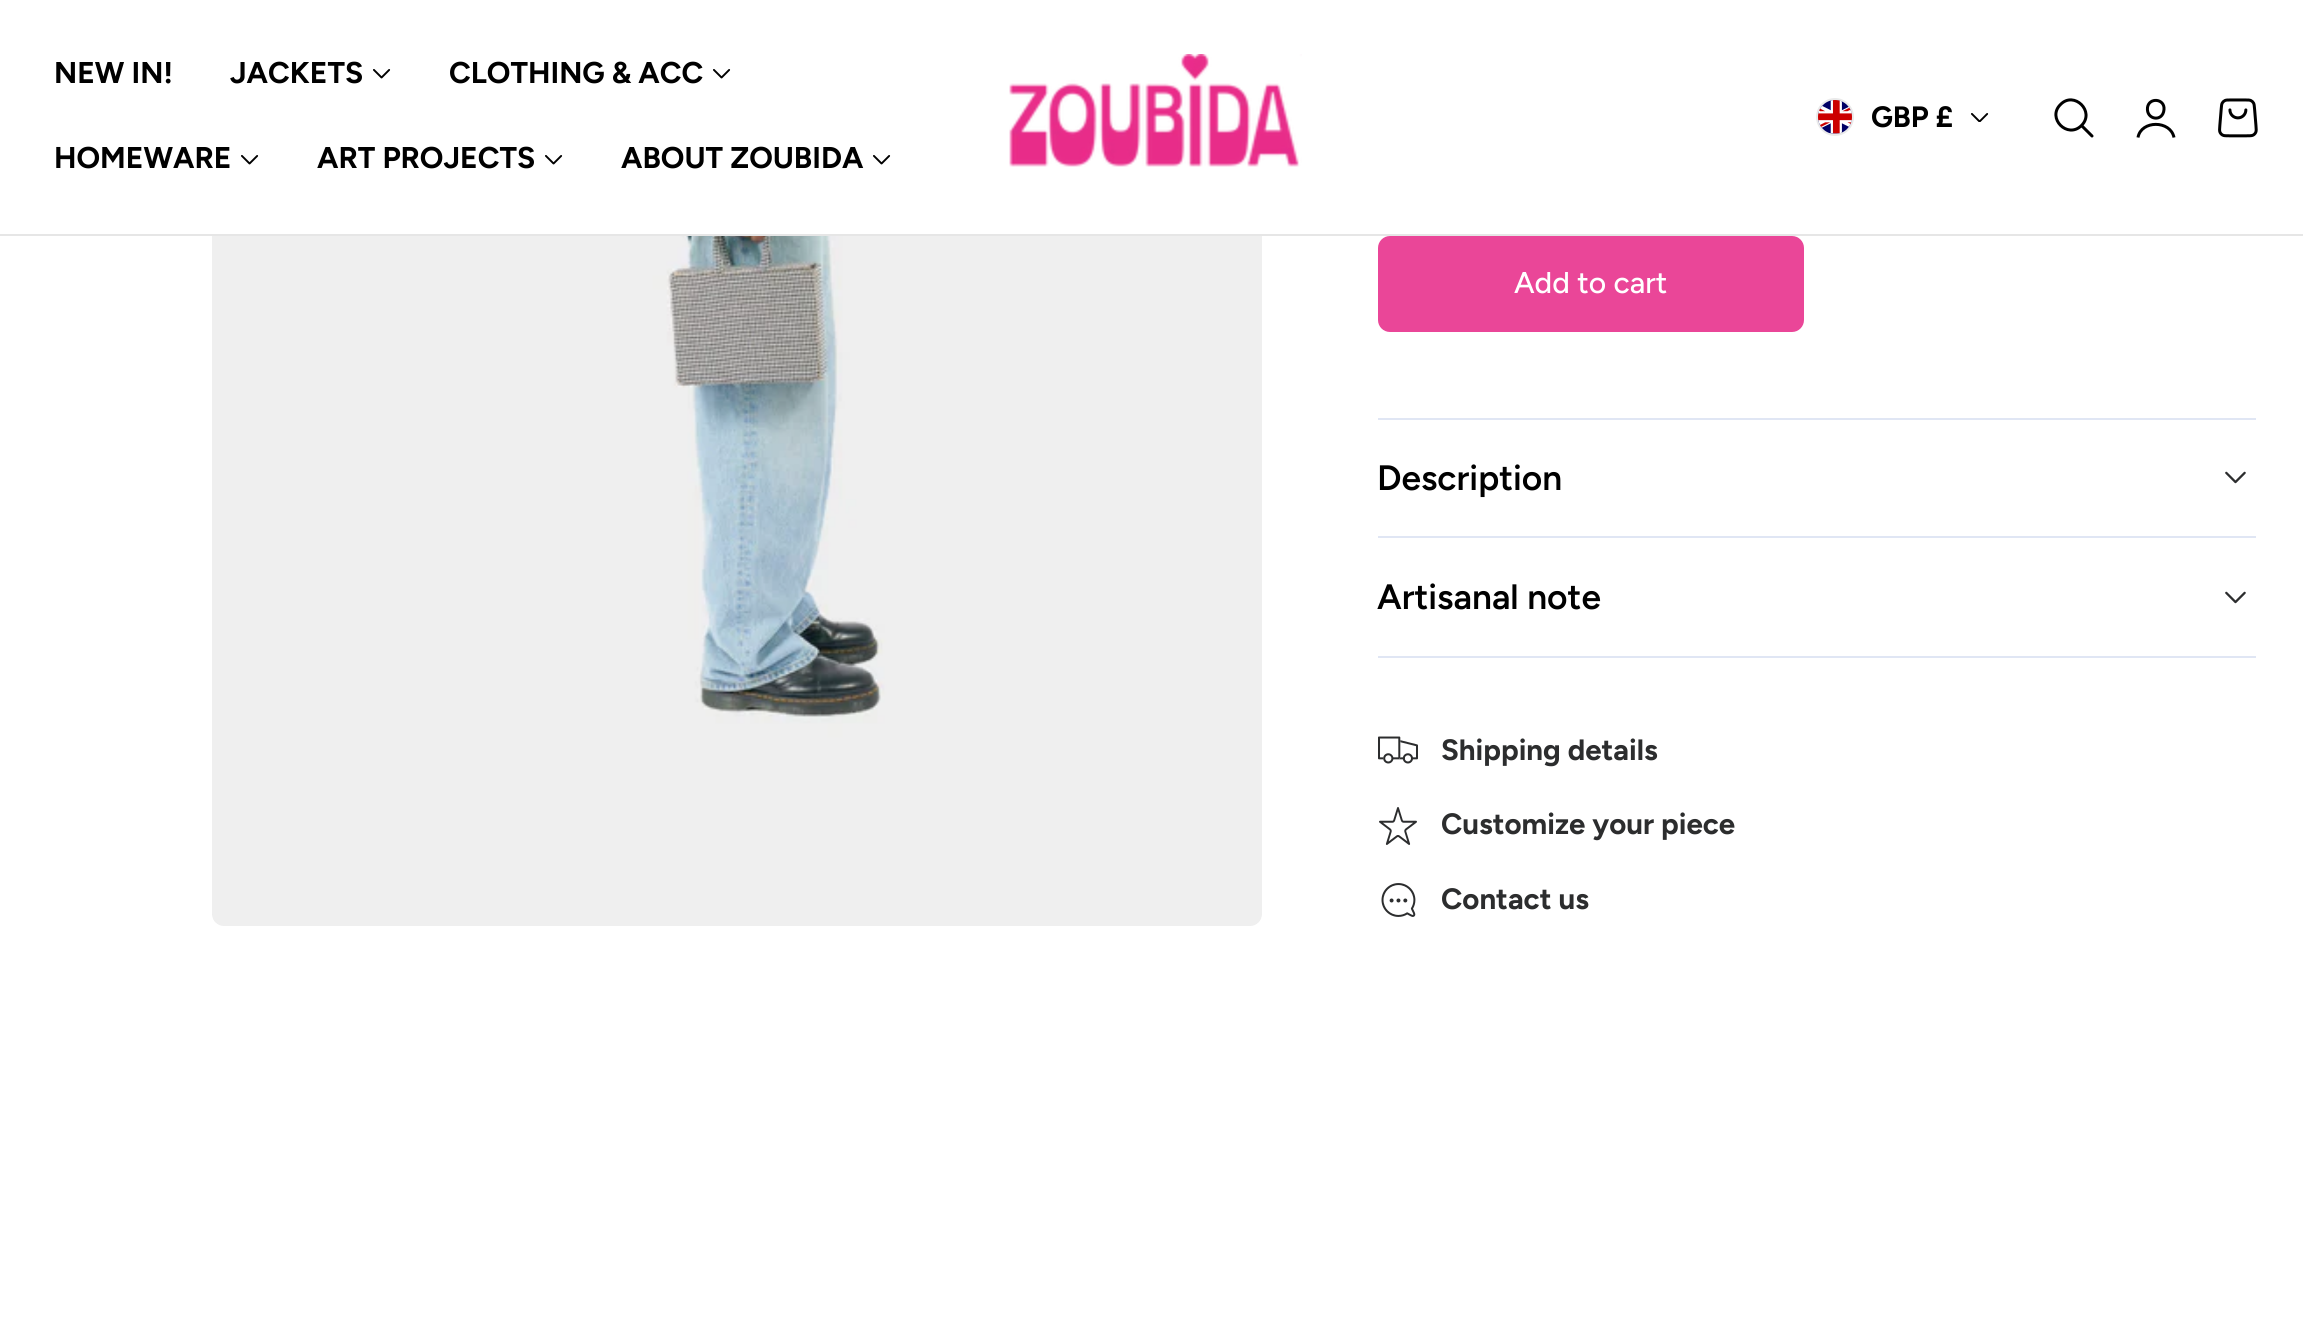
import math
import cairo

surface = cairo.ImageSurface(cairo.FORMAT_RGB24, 2303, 1321)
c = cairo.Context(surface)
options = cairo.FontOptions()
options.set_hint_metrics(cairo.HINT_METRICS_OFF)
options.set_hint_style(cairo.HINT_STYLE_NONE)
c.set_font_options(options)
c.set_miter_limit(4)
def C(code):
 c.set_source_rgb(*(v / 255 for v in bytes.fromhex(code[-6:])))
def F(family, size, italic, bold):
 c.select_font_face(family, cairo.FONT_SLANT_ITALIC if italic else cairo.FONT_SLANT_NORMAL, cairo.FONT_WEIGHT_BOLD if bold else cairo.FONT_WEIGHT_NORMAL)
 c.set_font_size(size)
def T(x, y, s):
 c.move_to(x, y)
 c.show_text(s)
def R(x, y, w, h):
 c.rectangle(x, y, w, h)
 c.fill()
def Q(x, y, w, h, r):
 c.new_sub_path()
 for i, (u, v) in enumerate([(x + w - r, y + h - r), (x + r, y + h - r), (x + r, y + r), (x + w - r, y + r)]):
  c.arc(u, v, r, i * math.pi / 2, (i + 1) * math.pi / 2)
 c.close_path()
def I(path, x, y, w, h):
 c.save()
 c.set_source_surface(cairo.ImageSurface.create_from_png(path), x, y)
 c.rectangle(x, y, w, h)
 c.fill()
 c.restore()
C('ffffff')
c.paint()
C('f5f5f5')
Q(212,-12,1050,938,12)
c.fill()
C('ffffff')
R(212,0,1050,234)
C('e6e6e6')
R(0,234,2303,2)
F('Figtree',30,0,1)
C('000000')
T(54,83,'NEW IN!')
T(230,83,'JACKETS')
I('1.png',373,69,18,10)
T(449,83,'CLOTHING & ACC')
I('1.png',713,69,18,10)
T(54,168,'HOMEWARE')
I('1.png',241,155,18,10)
T(317,168,'ART PROJECTS')
I('1.png',545,155,18,10)
T(621,168,'ABOUT ZOUBIDA')
I('1.png',873,155,18,10)
I('2.png',1009,54,293,113)
c.arc(1835,117,18,0,2 * math.pi)
C('eaeaea')
c.stroke()
I('3.png',1818,100,34,34)
F('Figtree',29.4,0,1)
C('000000')
T(1871,127,'GBP £')
I('4.png',1971,113,18,9)
c.new_path()
c.move_to(2092,136)
c.line_to(2081.5,125.5)
c.move_to(2081.5,125.5)
c.curve_to(2095.5,111.5,2074,90.5,2060.5,104.5)
c.curve_to(2046.5,118,2067.5,139.5,2081.5,125.5)
c.close_path()
c.set_line_width(3)
c.set_line_cap(cairo.LINE_CAP_ROUND)
c.set_line_join(cairo.LINE_JOIN_ROUND)
c.stroke()
c.new_path()
c.move_to(2164,109.5)
c.curve_to(2163,122.5,2146,120,2147.5,107.5)
c.curve_to(2149,97,2165,98.5,2164,109.5)
c.close_path()
c.stroke()
c.new_path()
c.move_to(2138,137.5)
c.curve_to(2141,120,2170.5,120,2174,137.5)
c.set_line_cap(cairo.LINE_CAP_BUTT)
c.set_line_join(cairo.LINE_JOIN_MITER)
c.stroke()
I('5.png',2218,98,40,40)
I('6.png',212,236,1050,690)
C('ea4698')
Q(1379,237,424,94,11)
c.fill_preserve()
c.set_line_width(2)
c.stroke()
F('Figtree Medium',30,0,0)
C('ffffff')
T(1514,293,'Add to cart')
C('e0e6f4')
R(1378,418,878,2)
R(1378,536,878,2)
F('Figtree SemiBold',35.25,0,0)
C('000000')
T(1377,490,'Description')
I('7.png',2225,471,21,13)
C('e0e6f4')
R(1378,656,878,2)
C('000000')
T(1377,609,'Artisanal note')
I('7.png',2225,591,21,13)
I('8.png',1378,736,40,28)
F('Figtree',29.4,0,1)
C('2c2d2e')
T(1441,760,'Shipping details')
I('9.png',1379,807,38,38)
T(1441,834,'Customize your piece')
I('10.png',1381,883,35,34)
T(1441,909,'Contact us')
surface.write_to_png('o.png')
